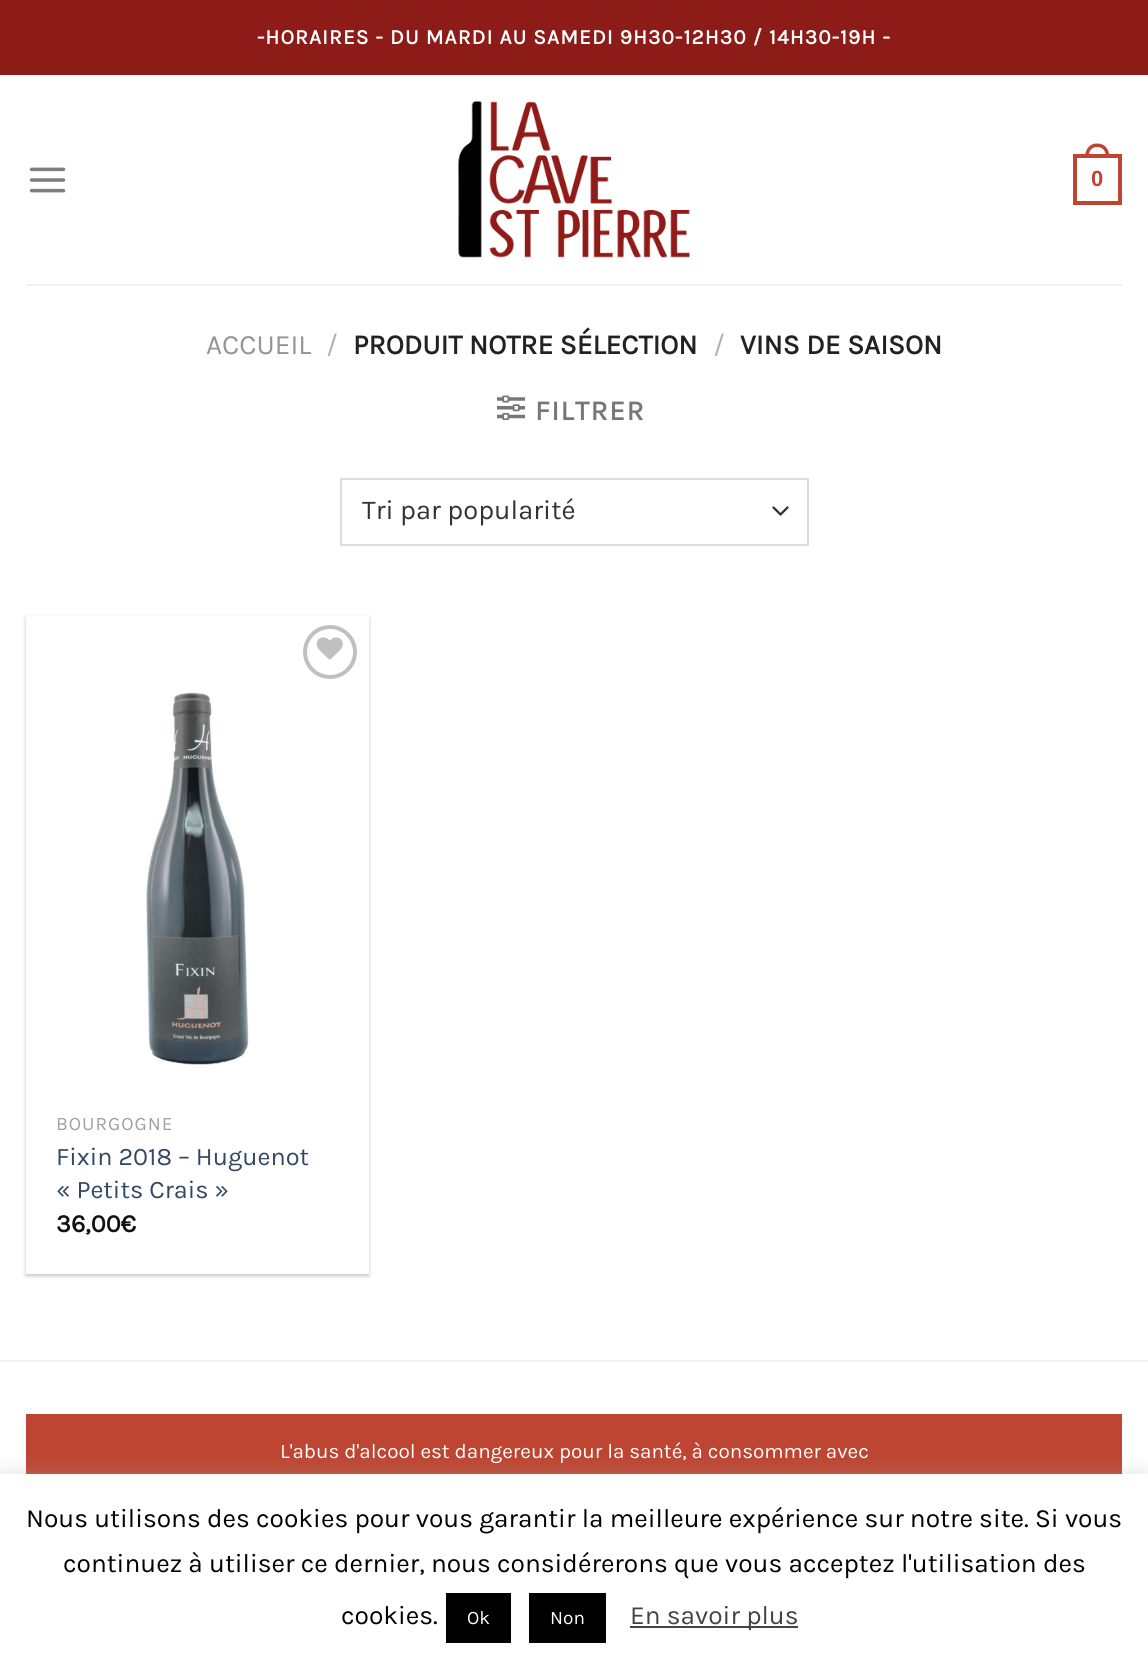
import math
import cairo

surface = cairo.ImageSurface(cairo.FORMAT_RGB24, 1148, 1672)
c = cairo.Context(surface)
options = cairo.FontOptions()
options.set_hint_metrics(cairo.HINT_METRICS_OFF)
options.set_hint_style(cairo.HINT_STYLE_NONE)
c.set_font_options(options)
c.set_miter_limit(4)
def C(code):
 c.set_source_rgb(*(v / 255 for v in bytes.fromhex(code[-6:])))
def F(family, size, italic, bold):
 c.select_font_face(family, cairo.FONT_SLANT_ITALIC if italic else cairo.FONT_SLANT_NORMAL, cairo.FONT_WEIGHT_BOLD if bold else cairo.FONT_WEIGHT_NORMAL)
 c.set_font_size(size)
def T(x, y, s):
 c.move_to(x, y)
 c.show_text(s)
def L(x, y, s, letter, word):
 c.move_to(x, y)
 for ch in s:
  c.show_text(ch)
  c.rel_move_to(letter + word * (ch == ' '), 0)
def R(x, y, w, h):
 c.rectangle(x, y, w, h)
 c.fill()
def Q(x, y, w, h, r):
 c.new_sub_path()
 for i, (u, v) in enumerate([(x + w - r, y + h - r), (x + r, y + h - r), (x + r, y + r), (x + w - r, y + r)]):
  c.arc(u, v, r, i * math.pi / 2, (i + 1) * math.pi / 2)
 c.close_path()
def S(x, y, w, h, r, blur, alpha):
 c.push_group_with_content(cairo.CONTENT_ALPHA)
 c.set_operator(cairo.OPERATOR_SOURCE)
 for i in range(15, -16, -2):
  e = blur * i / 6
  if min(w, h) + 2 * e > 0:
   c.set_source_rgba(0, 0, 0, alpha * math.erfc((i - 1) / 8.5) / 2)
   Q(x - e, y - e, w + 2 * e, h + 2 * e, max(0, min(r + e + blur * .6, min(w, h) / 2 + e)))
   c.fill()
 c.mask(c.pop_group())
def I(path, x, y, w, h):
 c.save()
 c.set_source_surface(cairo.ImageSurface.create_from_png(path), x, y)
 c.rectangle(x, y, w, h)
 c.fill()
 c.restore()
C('ffffff')
c.paint()
C('8d1b18')
R(0,0,1148,75)
F('Karla',21,0,1)
C('ffffff')
L(257,44,'-HORAIRES - DU MARDI AU SAMEDI 9H30-12H30 / 14H30-19H -',1.05,0)
I('1.png',29,167,37,26)
I('2.png',458,101,232,157)
c.rectangle(1075,156,45,47)
C('bd4531')
c.set_line_width(4)
c.stroke()
c.set_fill_rule(cairo.FILL_RULE_EVEN_ODD)
c.new_path()
c.move_to(1097,143.5)
c.curve_to(1105.5,143.5,1109.5,150,1109.5,157.5)
c.line_to(1085,157.5)
c.curve_to(1085,150,1089,143.5,1097,143.5)
c.close_path()
c.move_to(1097,147)
c.curve_to(1103.5,147,1106,152,1106,157.5)
c.line_to(1088.5,157.5)
c.curve_to(1088.5,152,1091,147,1097,147)
c.close_path()
c.fill()
F('Liberation Sans',22,0,1)
T(1091,186,'0')
C('f1f1f1')
R(26,284,1096,2)
F('Karla',28,0,0)
C('949494')
T(206,354,'ACCUEIL')
C('b2b2b2')
T(326,354,'/')
F('Karla',28,0,1)
C('222222')
T(353,354,'PRODUIT NOTRE SÉLECTION')
F('Karla',28,0,0)
C('b2b2b2')
T(713,354,'/')
F('Karla',28,0,1)
C('222222')
T(740,354,'VINS DE SAISON')
I('3.png',497,395,28,25)
C('777777')
L(535,420,'FILTRER',1.5,0)
c.new_path()
c.move_to(773.5,507.5)
c.line_to(780.5,514.5)
c.line_to(787.5,507.5)
C('333333')
c.set_line_width(2.3)
c.set_line_cap(cairo.LINE_CAP_ROUND)
c.set_line_join(cairo.LINE_JOIN_ROUND)
c.stroke()
c.rectangle(341,479,467,66)
C('dddddd')
c.set_line_width(2)
c.set_line_cap(cairo.LINE_CAP_BUTT)
c.set_line_join(cairo.LINE_JOIN_MITER)
c.stroke()
F('Karla',27.25,0,0)
C('333333')
T(362,519,'Tri par popularité')
C('000000')
S(26,618,343,658,0,2,.24)
C('ffffff')
R(26,616,343,658)
c.arc(330,652,25,0,2 * math.pi)
C('c0c0c0')
c.set_line_width(4)
c.stroke()
I('4.png',316,637,27,23)
I('5.png',146,690,104,378)
F('Karla',19,0,0)
C('a0a0a0')
L(56,1130,'BOURGOGNE',1,0)
F('Karla',25.25,0,0)
C('334862')
T(56,1165,'Fixin 2018 – Huguenot')
T(56,1198,'« Petits Crais »')
F('Karla',25.25,0,1)
C('111111')
T(56,1232,'36,00€')
C('f2f2f2')
R(0,1360,1148,2)
C('bd4531')
R(26,1414,1096,60)
F('Karla',20.65,0,0)
C('ffffff')
T(280,1458,'L\'abus d\'alcool est dangereux pour la santé, à consommer avec')
C('acabab')
S(0,1472,1148,199,0,9,.3)
C('ffffff')
R(0,1474,1148,198)
F('Karla',26.25,0,0)
C('000000')
T(26,1527,'Nous utilisons des cookies pour vous garantir la meilleure expérience sur notre site. Si vous')
T(63,1572,'continuez à utiliser ce dernier, nous considérerons que vous acceptez l\'utilisation des')
T(341,1624,'cookies.')
R(446,1593,65,50)
F('Karla',19,0,0)
C('ffffff')
T(467,1624,'Ok')
C('000000')
R(529,1593,77,50)
C('ffffff')
T(550,1624,'Non')
C('444444')
R(630,1626,168,2)
F('Karla',26.25,0,0)
T(630,1624,'En savoir plus')
surface.write_to_png('o.png')
